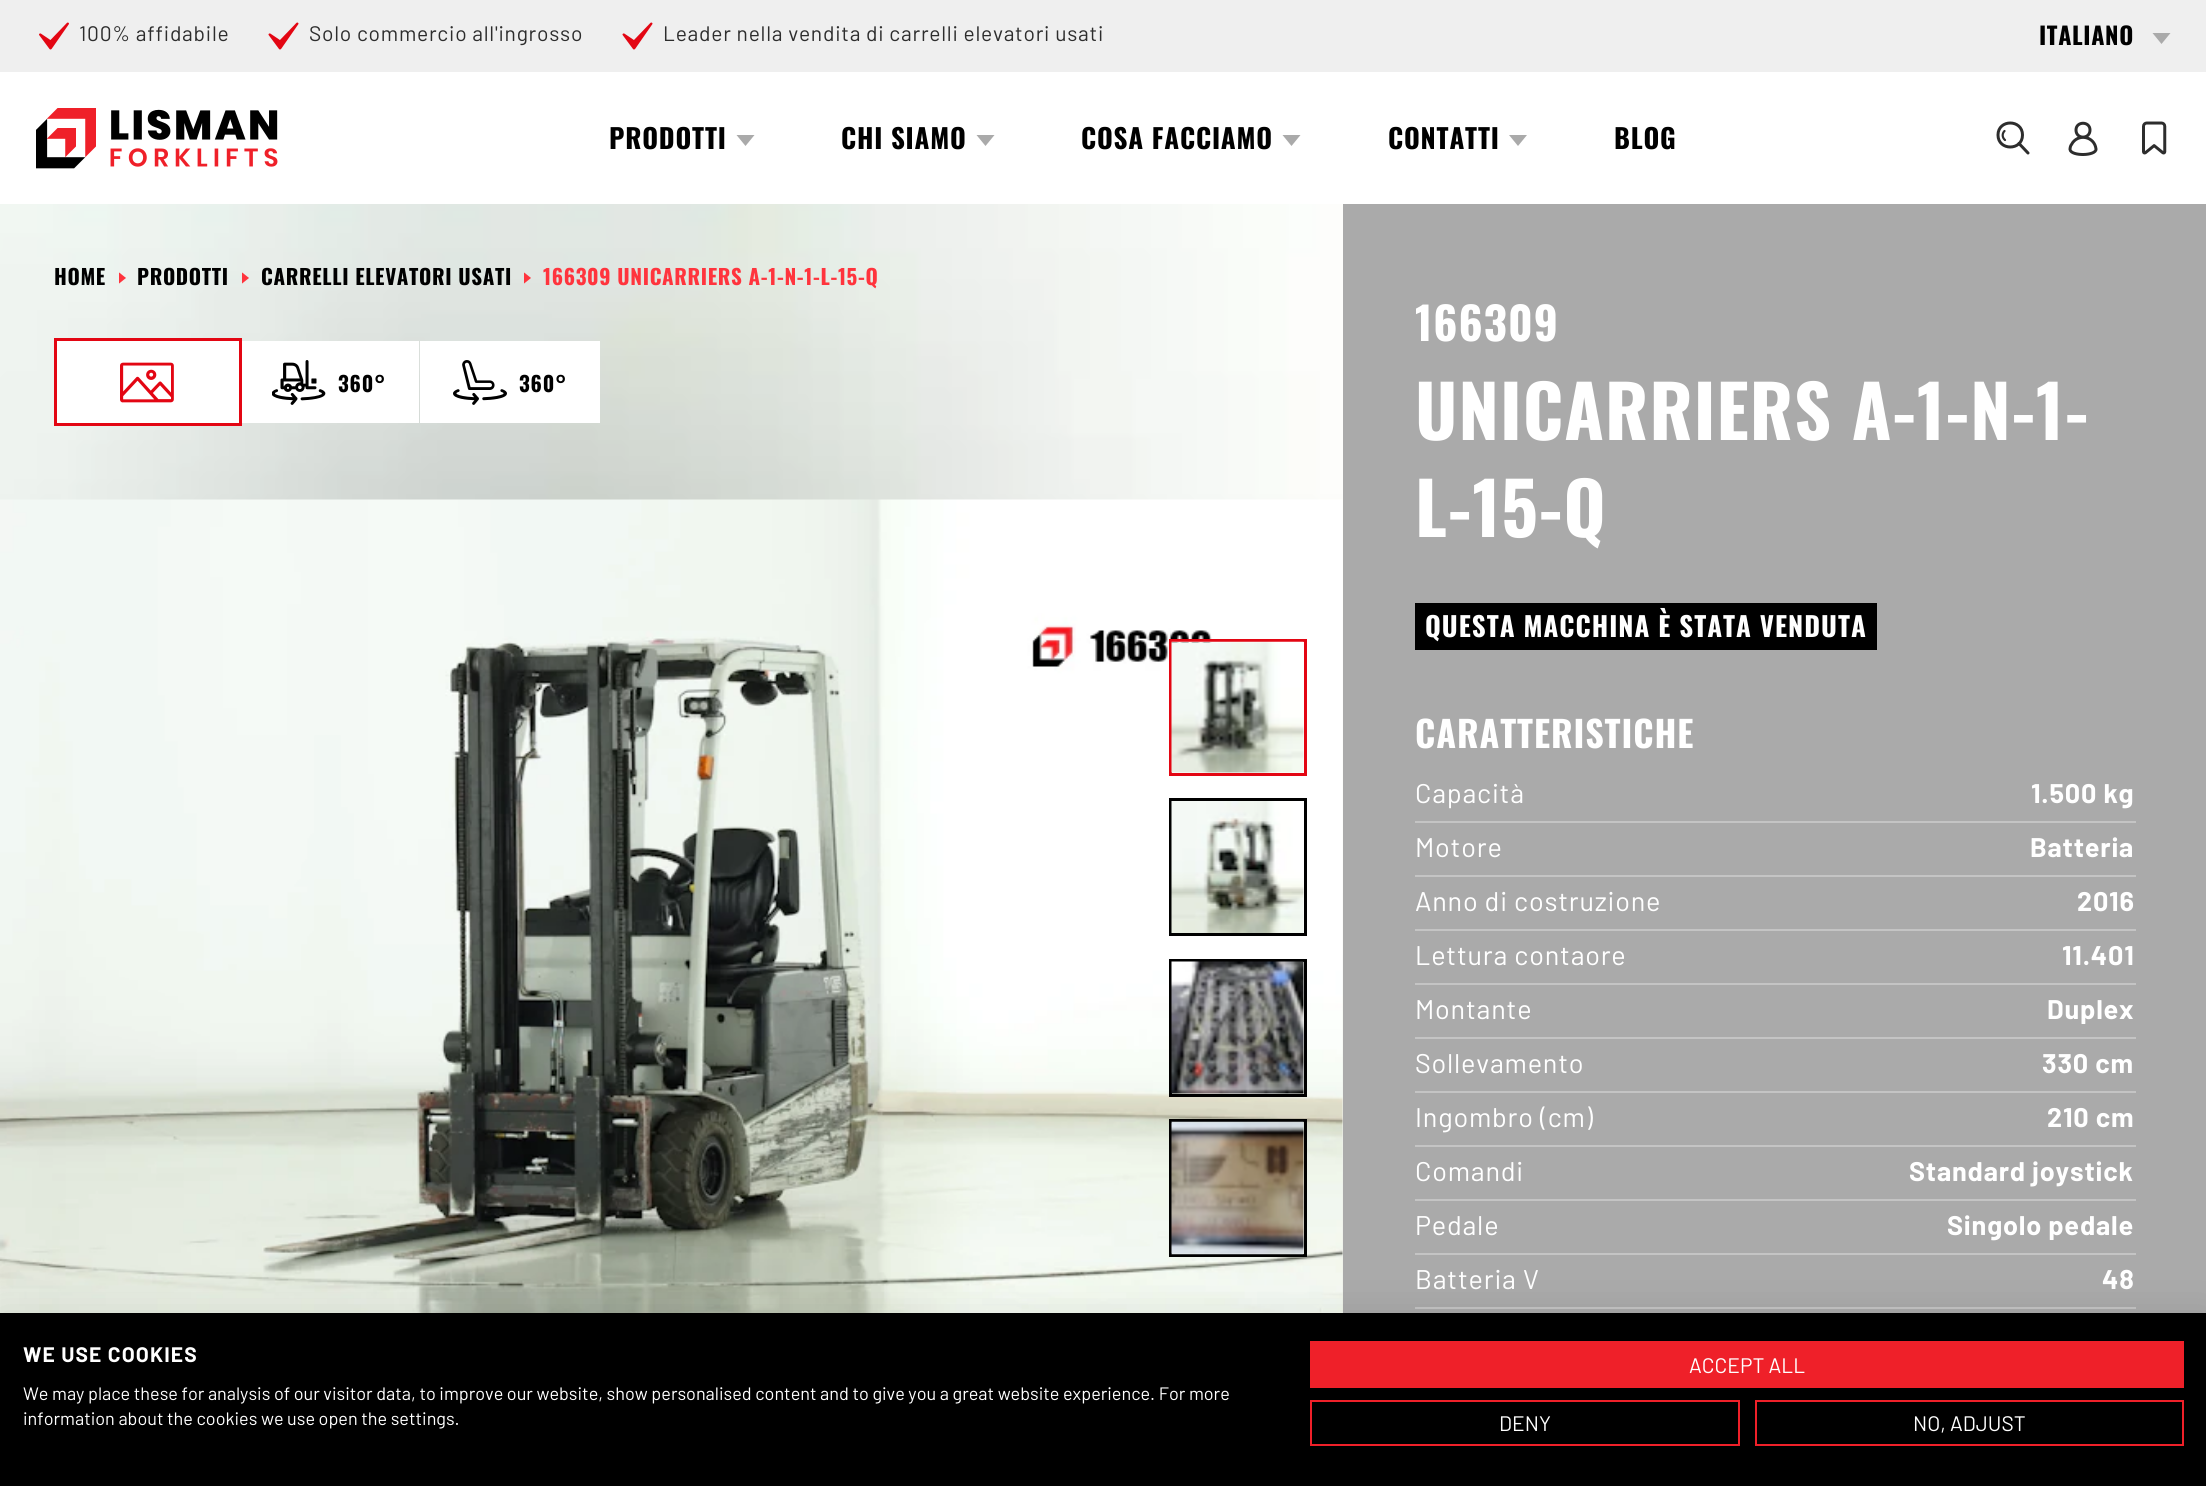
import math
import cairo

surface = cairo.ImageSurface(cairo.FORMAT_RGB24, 2206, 1486)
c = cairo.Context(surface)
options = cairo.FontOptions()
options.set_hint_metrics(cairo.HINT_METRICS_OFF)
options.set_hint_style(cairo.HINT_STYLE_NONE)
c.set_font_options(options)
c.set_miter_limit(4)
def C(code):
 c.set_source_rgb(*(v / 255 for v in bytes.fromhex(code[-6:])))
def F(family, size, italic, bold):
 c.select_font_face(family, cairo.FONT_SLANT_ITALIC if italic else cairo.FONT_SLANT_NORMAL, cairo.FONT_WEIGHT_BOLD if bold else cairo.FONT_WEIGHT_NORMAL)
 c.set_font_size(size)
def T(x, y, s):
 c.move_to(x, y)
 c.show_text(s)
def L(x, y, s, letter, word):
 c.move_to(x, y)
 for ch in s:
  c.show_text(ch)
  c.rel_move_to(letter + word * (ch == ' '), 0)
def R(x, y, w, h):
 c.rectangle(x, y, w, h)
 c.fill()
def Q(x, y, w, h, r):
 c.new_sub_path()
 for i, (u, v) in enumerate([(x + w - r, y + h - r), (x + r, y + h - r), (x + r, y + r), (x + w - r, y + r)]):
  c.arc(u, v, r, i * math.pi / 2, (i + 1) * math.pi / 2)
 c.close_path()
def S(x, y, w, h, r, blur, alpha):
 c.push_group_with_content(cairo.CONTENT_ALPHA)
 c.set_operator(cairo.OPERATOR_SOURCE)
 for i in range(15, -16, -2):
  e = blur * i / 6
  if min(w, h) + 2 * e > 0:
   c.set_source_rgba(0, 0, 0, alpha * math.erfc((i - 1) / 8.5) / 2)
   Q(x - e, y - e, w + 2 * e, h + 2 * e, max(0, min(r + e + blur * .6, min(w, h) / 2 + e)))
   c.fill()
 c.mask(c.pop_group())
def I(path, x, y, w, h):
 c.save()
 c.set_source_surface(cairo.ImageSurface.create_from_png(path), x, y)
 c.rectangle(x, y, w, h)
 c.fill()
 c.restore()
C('ffffff')
c.paint()
C('efefef')
R(0,0,2206,72)
I('1.png',39,22,30,28)
F('Barlow',21,0,0)
C('2d2d2d')
L(79,41,'100% affidabile',.75,0)
I('2.png',268,22,31,28)
L(309,41,'Solo commercio all\'ingrosso',.75,0)
I('2.png',622,22,31,28)
L(663,41,'Leader nella vendita di carrelli elevatori usati',.75,0)
C('aaaaaa')
c.set_fill_rule(cairo.FILL_RULE_EVEN_ODD)
c.new_path()
c.move_to(2161.5,44)
c.line_to(2170.5,33)
c.line_to(2152.5,33)
c.close_path()
c.fill()
F('Oswald',24,0,1)
C('000000')
L(2039,45,'ITALIANO',.65,0)
I('3.png',36,108,242,61)
F('Oswald',27,0,1)
L(609,149,'PRODOTTI',.8,0)
C('aaaaaa')
c.new_path()
c.move_to(745.5,146)
c.line_to(754.5,135)
c.line_to(736.5,135)
c.close_path()
c.fill()
C('000000')
L(841,149,'CHI SIAMO',.8,0)
C('aaaaaa')
c.new_path()
c.move_to(985.5,146)
c.line_to(994.5,135)
c.line_to(976.5,135)
c.close_path()
c.fill()
C('000000')
L(1081,149,'COSA FACCIAMO',.8,0)
C('aaaaaa')
c.new_path()
c.move_to(1291.5,146)
c.line_to(1300.5,135)
c.line_to(1282.5,135)
c.close_path()
c.fill()
C('000000')
L(1388,149,'CONTATTI',.8,0)
C('aaaaaa')
c.new_path()
c.move_to(1518,146)
c.line_to(1527,135)
c.line_to(1509,135)
c.close_path()
c.fill()
C('000000')
L(1614,149,'BLOG',.8,0)
c.new_path()
c.move_to(2022.5,135)
c.curve_to(2022.5,151,1998,151,1998,135)
c.curve_to(1998,119,2022.5,119,2022.5,135)
c.close_path()
C('2d2d2d')
c.set_line_width(3)
c.set_line_cap(cairo.LINE_CAP_ROUND)
c.stroke()
c.new_path()
c.move_to(2005,140)
c.curve_to(2002,137.5,2002,133.5,2004.5,131)
c.set_line_width(2.2)
c.stroke()
c.new_path()
c.move_to(2019,143.5)
c.line_to(2028,153)
c.set_line_width(3)
c.stroke()
c.new_path()
c.move_to(2096,149)
c.curve_to(2096.5,156,2071,156.5,2070,149.5)
c.curve_to(2070,148,2070.5,145.5,2071.5,144.5)
c.curve_to(2077.5,133,2094.5,136,2096,149)
c.close_path()
c.move_to(2090,130)
c.curve_to(2090,139.5,2076,139.5,2076,130)
c.curve_to(2076,121,2090,121,2090,130)
c.close_path()
c.stroke()
I('4.png',2142,121,25,34)
I('5.png',0,204,1343,1109)
I('6.png',0,499,1343,814)
c.rectangle(1170.5,640.5,135,134)
C('e30613')
c.set_line_cap(cairo.LINE_CAP_BUTT)
c.stroke()
I('7.png',1171,641,133,132)
c.rectangle(1170.5,799.5,135,135)
C('000000')
c.stroke()
I('8.png',1171,801,133,132)
c.rectangle(1170.5,960.5,135,135)
c.stroke()
I('9.png',1171,961,133,133)
c.rectangle(1170.5,1120.5,135,135)
c.stroke()
I('10.png',1171,1121,133,134)
F('Oswald',21,0,1)
L(54,285,'HOME',.65,0)
c.save()
c.set_fill_rule(cairo.FILL_RULE_WINDING)
c.rectangle(119,272,7,13)
c.clip()
C('ff343d')
c.set_fill_rule(cairo.FILL_RULE_EVEN_ODD)
c.new_path()
c.move_to(126,278)
c.line_to(118.5,272)
c.line_to(118.5,284)
c.close_path()
c.fill()
c.restore()
L(137,285,'PRODOTTI',.65,0)
c.save()
c.set_fill_rule(cairo.FILL_RULE_WINDING)
c.rectangle(242,272,7,13)
c.clip()
C('ff343d')
c.set_fill_rule(cairo.FILL_RULE_EVEN_ODD)
c.new_path()
c.move_to(249,278)
c.line_to(241.5,272)
c.line_to(241.5,284)
c.close_path()
c.fill()
c.restore()
L(261,285,'CARRELLI ELEVATORI USATI',.65,0)
c.save()
c.set_fill_rule(cairo.FILL_RULE_WINDING)
c.rectangle(524,272,7,13)
c.clip()
C('ff343d')
c.set_fill_rule(cairo.FILL_RULE_EVEN_ODD)
c.new_path()
c.move_to(531,278)
c.line_to(523.5,272)
c.line_to(523.5,284)
c.close_path()
c.fill()
c.restore()
C('ff343d')
L(543,285,'166309 UNICARRIERS A-1-N-1-L-15-Q',.65,0)
C('ffffff')
c.rectangle(55.5,339.5,185,85)
c.fill_preserve()
C('e30613')
c.stroke()
I('11.png',120,362,54,41)
C('ffffff')
R(242,341,177,82)
I('12.png',272,360,54,45)
C('000000')
L(338,392,'360°',.8,0)
C('ffffff')
R(420,341,180,82)
I('13.png',453,360,54,45)
C('000000')
L(519,392,'360°',.8,0)
C('aaaaaa')
R(1343,204,863,1109)
F('Oswald',45,0,1)
C('ffffff')
L(1415,341,'166309',1,0)
F('Oswald',72,0,1)
L(1415,440,'UNICARRIERS A-1-N-1-',1.1,0)
L(1415,537,'L-15-Q',1.1,0)
C('000000')
R(1415,603,462,47)
F('Oswald',27,0,1)
C('ffffff')
L(1425,637,'QUESTA MACCHINA È STATA VENDUTA',1,0)
F('Oswald',36,0,1)
L(1415,748,'CARATTERISTICHE',.9,0)
C('c4c4c4')
R(1415,821,721,2)
F('Barlow',27,0,0)
C('ffffff')
L(1415,803,'Capacità',.8,0)
F('Barlow',27,0,1)
L(2031,803,'1.500 kg',.8,0)
C('c4c4c4')
R(1415,875,721,2)
F('Barlow',27,0,0)
C('ffffff')
L(1415,857,'Motore',.8,0)
F('Barlow',27,0,1)
L(2030,857,'Batteria',.8,0)
C('c4c4c4')
R(1415,929,721,2)
F('Barlow',27,0,0)
C('ffffff')
L(1415,911,'Anno di costruzione',.8,0)
F('Barlow',27,0,1)
L(2077,911,'2016',.8,0)
C('c4c4c4')
R(1415,983,721,2)
F('Barlow',27,0,0)
C('ffffff')
L(1415,965,'Lettura contaore',.8,0)
F('Barlow',27,0,1)
L(2062,965,'11.401',.8,0)
C('c4c4c4')
R(1415,1037,721,2)
F('Barlow',27,0,0)
C('ffffff')
L(1415,1019,'Montante',.8,0)
F('Barlow',27,0,1)
L(2047,1019,'Duplex',.8,0)
C('c4c4c4')
R(1415,1091,721,2)
F('Barlow',27,0,0)
C('ffffff')
L(1415,1073,'Sollevamento',.8,0)
F('Barlow',27,0,1)
L(2042,1073,'330 cm',.8,0)
C('c4c4c4')
R(1415,1145,721,2)
F('Barlow',27,0,0)
C('ffffff')
L(1415,1127,'Ingombro (cm)',.8,0)
F('Barlow',27,0,1)
L(2047,1127,'210 cm',.8,0)
C('c4c4c4')
R(1415,1199,721,2)
F('Barlow',27,0,0)
C('ffffff')
L(1415,1181,'Comandi',.8,0)
F('Barlow',27,0,1)
L(1909,1181,'Standard joystick',.8,0)
C('c4c4c4')
R(1415,1253,721,2)
F('Barlow',27,0,0)
C('ffffff')
L(1415,1235,'Pedale',.8,0)
F('Barlow',27,0,1)
L(1947,1235,'Singolo pedale',.8,0)
C('c4c4c4')
R(1415,1307,721,2)
F('Barlow',27,0,0)
C('ffffff')
L(1415,1289,'Batteria V',.8,0)
F('Barlow',27,0,1)
L(2102,1289,'48',.8,0)
C('000000')
S(0,1313,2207,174,0,18,.1)
C('000000')
R(0,1313,2206,173)
F('Barlow',21,0,1)
C('ffffff')
L(23,1362,'WE USE COOKIES',1.1,0)
F('Barlow',18,0,0)
T(23,1400,'We may place these for analysis of our visitor data, to improve our website, show personalised content and to give you a great website experience. For more')
T(23,1425,'information about the cookies we use open the settings.')
C('ef2029')
R(1310,1341,874,47)
F('Barlow',21,0,0)
C('ffffff')
T(1689,1373,'ACCEPT ALL')
c.rectangle(1311,1401,428,44)
C('ef2029')
c.set_line_width(2)
c.stroke()
C('ffffff')
T(1499,1431,'DENY')
c.rectangle(1756,1401,427,44)
C('ef2029')
c.stroke()
C('ffffff')
T(1913,1431,'NO, ADJUST')
surface.write_to_png('o.png')
